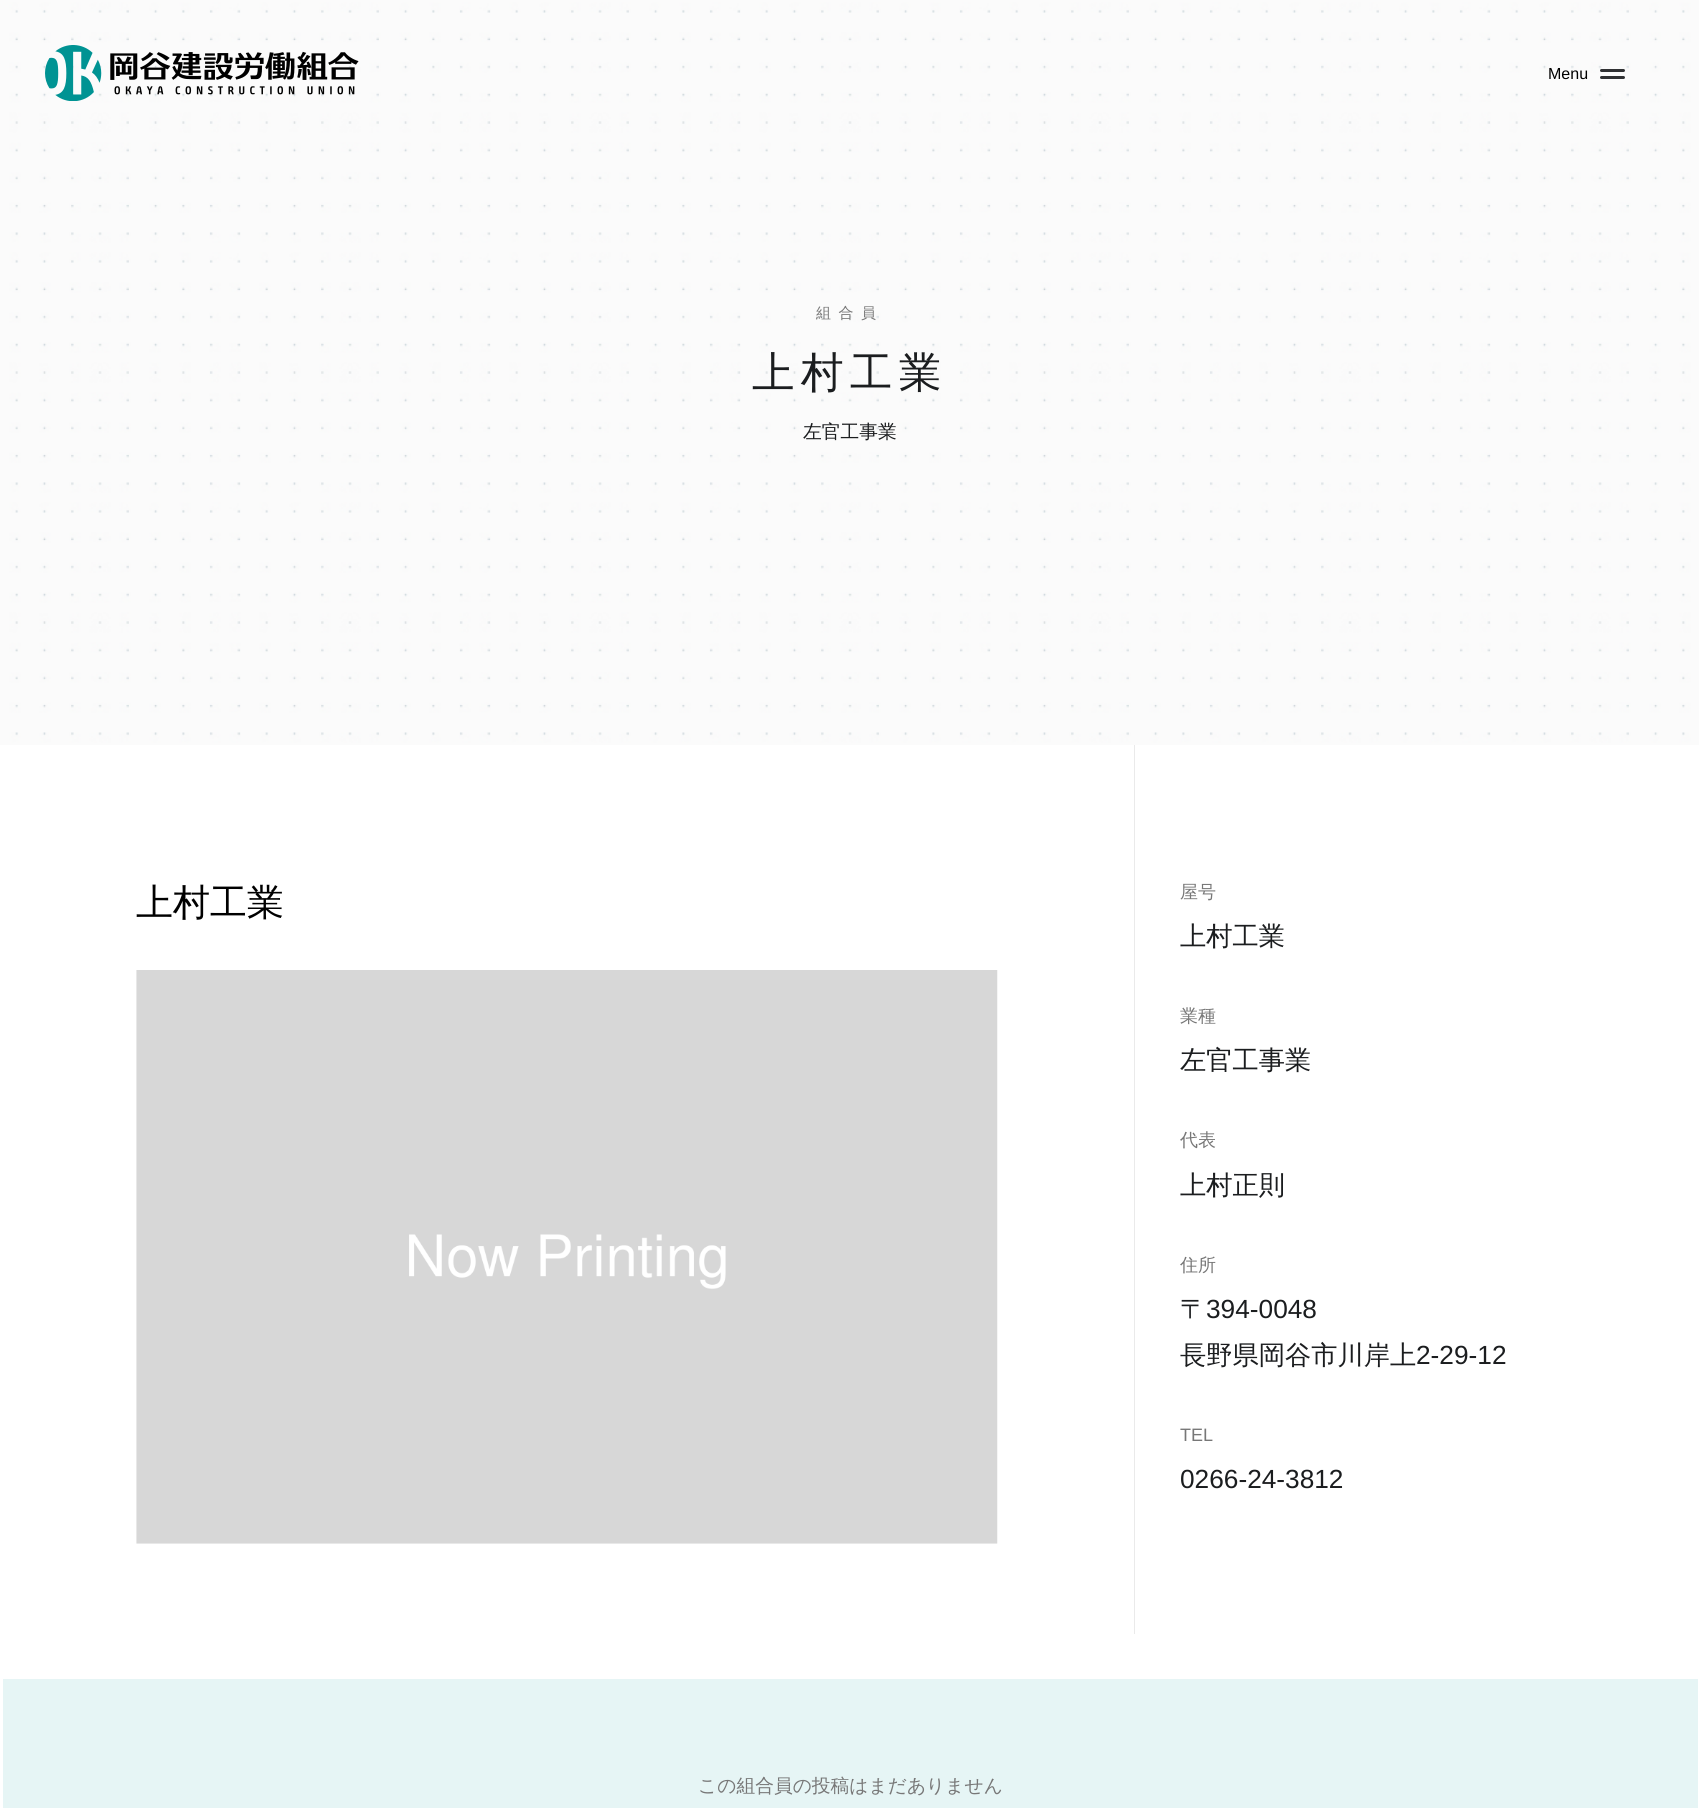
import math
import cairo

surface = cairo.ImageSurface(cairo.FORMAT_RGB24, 1699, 1808)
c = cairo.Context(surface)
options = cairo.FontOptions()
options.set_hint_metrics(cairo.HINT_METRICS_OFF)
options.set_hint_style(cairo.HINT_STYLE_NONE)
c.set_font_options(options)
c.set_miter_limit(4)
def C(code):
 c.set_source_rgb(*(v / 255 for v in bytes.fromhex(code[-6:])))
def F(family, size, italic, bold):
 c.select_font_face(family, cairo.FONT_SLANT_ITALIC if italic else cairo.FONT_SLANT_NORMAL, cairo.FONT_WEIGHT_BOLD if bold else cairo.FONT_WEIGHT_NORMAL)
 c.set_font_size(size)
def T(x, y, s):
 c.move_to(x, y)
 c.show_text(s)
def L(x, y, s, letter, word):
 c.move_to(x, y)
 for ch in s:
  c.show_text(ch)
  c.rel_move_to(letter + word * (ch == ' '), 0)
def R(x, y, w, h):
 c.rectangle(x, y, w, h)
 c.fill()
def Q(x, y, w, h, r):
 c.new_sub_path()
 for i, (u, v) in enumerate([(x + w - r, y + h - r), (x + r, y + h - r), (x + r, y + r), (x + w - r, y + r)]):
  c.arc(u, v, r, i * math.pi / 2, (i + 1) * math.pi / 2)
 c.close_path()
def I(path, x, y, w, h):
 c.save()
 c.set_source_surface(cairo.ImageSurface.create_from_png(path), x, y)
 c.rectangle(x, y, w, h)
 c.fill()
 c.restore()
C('ffffff')
c.paint()
I('2.png',0,0,1699,745)
I('1.png',45,45,314,56)
F('Liberation Sans',16,0,0)
C('000000')
T(1548,79,'Menu')
C('303133')
Q(1600,69,25,3,1.5)
c.fill()
Q(1600,76,25,3,1.5)
c.fill()
F('WenQuanYi Zen Hei Medium',15,0,0)
C('777777')
L(816,318,'組合員',7.5,0)
F('WenQuanYi Zen Hei Medium',42.5,0,0)
C('1b1d1f')
L(752,387,'上村工業',6.5,0)
F('WenQuanYi Zen Hei Medium',18.75,0,0)
T(803,438,'左官工事業')
F('WenQuanYi Zen Hei Medium',37,0,0)
C('000000')
T(136,915,'上村工業')
I('3.png',136,970,862,574)
C('eaeaea')
R(1134,745,1,889)
F('WenQuanYi Zen Hei Medium',18,0,0)
C('777777')
T(1180,898,'屋号')
F('WenQuanYi Zen Hei Medium',26.25,0,0)
C('1b1d1f')
T(1180,945,'上村工業')
F('WenQuanYi Zen Hei Medium',18,0,0)
C('777777')
T(1180,1022,'業種')
F('WenQuanYi Zen Hei Medium',26.25,0,0)
C('1b1d1f')
T(1180,1069,'左官工事業')
F('WenQuanYi Zen Hei Medium',18,0,0)
C('777777')
T(1180,1146,'代表')
F('WenQuanYi Zen Hei Medium',26.25,0,0)
C('1b1d1f')
T(1180,1194,'上村正則')
F('WenQuanYi Zen Hei Medium',18,0,0)
C('777777')
T(1180,1271,'住所')
F('WenQuanYi Zen Hei Medium',26.25,0,0)
C('1b1d1f')
T(1180,1318,'〒')
F('Liberation Sans',26.25,0,0)
T(1206,1318,'394-0048')
F('WenQuanYi Zen Hei Medium',26.25,0,0)
T(1180,1364,'長野県岡谷市川岸上')
F('Liberation Sans',26.25,0,0)
T(1416,1364,'2-29-12')
F('Liberation Sans',18,0,0)
C('777777')
T(1180,1441,'TEL')
F('Liberation Sans',26.25,0,0)
C('1b1d1f')
T(1180,1488,'0266-24-3812')
C('e6f5f5')
R(3,1679,1695,129)
F('WenQuanYi Zen Hei Medium',18.75,0,0)
C('777777')
T(698,1792,'この組合員の投稿はまだありません')
surface.write_to_png('o.png')
